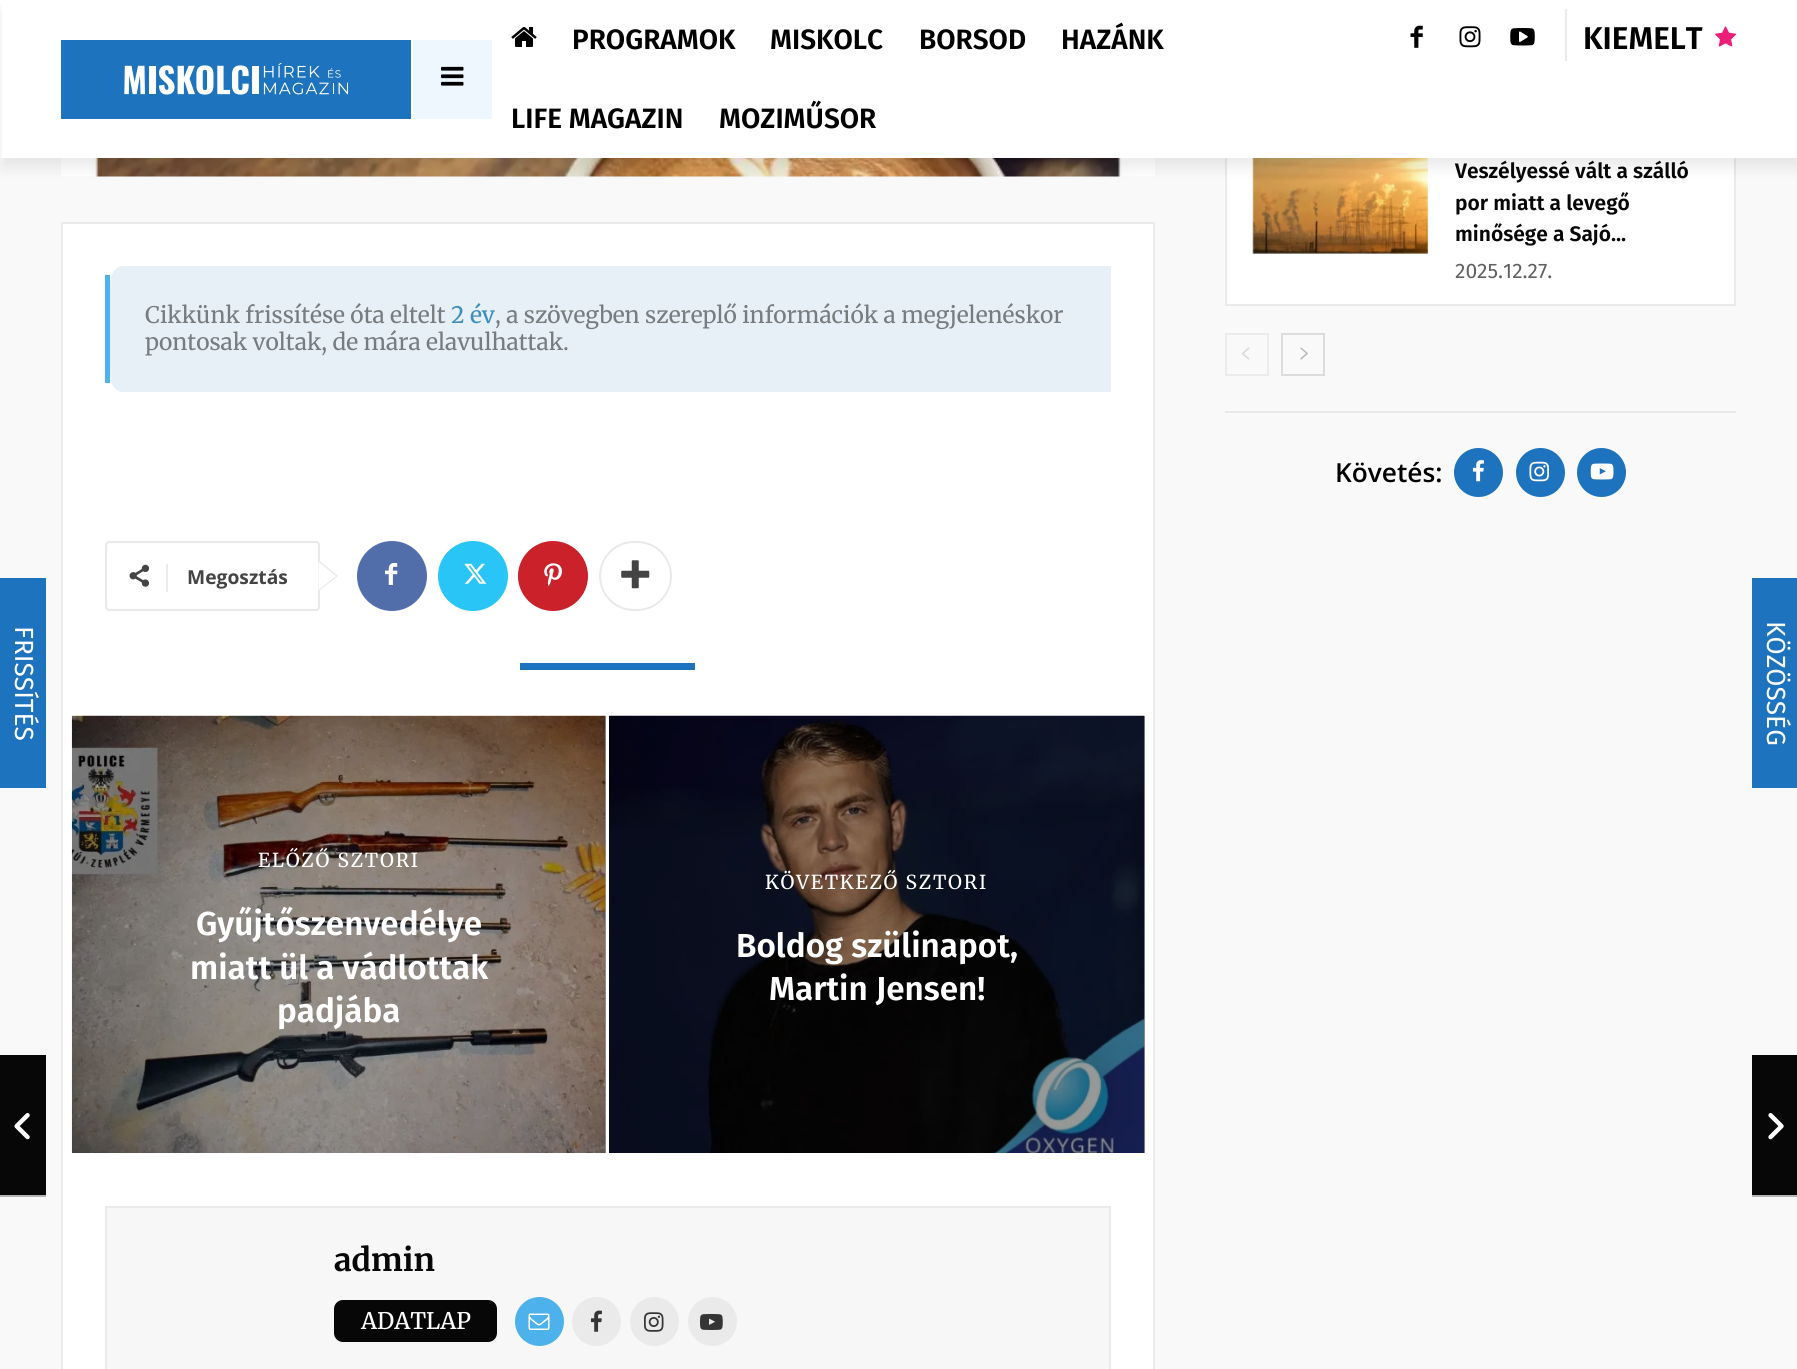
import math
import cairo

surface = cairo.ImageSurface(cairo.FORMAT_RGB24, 1797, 1369)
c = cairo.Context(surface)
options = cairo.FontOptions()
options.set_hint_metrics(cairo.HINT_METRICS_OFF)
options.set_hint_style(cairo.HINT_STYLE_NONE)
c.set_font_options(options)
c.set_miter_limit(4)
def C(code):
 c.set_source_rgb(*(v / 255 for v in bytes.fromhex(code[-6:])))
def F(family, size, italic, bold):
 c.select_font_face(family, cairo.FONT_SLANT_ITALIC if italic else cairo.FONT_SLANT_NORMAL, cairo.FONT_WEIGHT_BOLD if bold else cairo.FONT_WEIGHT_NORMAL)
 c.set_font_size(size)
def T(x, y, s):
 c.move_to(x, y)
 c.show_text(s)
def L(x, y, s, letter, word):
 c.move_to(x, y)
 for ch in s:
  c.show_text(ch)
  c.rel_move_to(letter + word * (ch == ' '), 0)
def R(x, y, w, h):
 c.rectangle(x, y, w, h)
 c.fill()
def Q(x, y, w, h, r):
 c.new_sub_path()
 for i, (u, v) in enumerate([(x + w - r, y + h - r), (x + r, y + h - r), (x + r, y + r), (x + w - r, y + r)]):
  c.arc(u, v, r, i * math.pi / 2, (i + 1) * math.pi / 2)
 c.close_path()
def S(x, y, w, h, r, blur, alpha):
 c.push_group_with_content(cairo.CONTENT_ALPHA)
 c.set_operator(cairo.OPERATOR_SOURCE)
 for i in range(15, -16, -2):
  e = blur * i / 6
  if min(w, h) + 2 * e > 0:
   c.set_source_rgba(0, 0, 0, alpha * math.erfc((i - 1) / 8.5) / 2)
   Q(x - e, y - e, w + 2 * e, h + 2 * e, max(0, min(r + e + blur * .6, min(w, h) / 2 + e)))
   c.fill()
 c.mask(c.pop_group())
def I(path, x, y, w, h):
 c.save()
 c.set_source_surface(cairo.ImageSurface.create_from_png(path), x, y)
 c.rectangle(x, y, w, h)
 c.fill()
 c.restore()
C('f9f9f9')
c.paint()
C('1e73be')
R(0,578,46,210)
F('Fira Sans',26.25,0,0)
C('ffffff')
c.save()
c.translate(15,626)
c.rotate(90 * math.pi / 180)
T(0,0,'FRISSÍTÉS')
c.restore()
R(1227,158,507,146)
c.rectangle(1226,-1,509,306)
C('eaeaea')
c.stroke()
C('ffffff')
R(0,0,1797,158)
C('1e73be')
R(61,40,350,79)
I('1.png',124,63,224,32)
C('eef7fe')
R(413,40,79,79)
I('2.png',441,66,23,20)
C('eaeaea')
R(1565,9,2,52)
I('4.png',1410,25,13,23)
I('5.png',1459,26,22,22)
I('6.png',1510,28,25,18)
I('10.png',61,158,1094,19)
I('22.png',1252,158,176,96)
c.save()
c.set_fill_rule(cairo.FILL_RULE_EVEN_ODD)
c.new_path()
c.move_to(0,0)
c.line_to(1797,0)
c.line_to(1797,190)
c.line_to(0,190)
c.close_path()
c.move_to(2,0)
c.line_to(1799,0)
c.line_to(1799,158)
c.line_to(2,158)
c.close_path()
c.clip()
C('000000')
S(2,11,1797,157,0,7,.08)
c.restore()
I('3.png',511,27,26,20)
F('Fira Sans SemiBold',28,0,0)
C('000000')
T(572,49,'PROGRAMOK')
T(770,49,'MISKOLC')
T(919,49,'BORSOD')
T(1061,49,'HAZÁNK')
T(511,128,'LIFE MAGAZIN')
T(719,128,'MOZIMŰSOR')
F('Fira Sans SemiBold',31.5,0,0)
T(1583,49,'KIEMELT')
I('7.png',1715,26,22,21)
C('d4d4d4')
c.new_path()
c.move_to(-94,1195)
c.line_to(-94,1197)
c.line_to(46,1197)
c.line_to(46,1057)
c.line_to(46,1195)
c.close_path()
c.fill()
I('9.png',0,1195,46,1)
c.set_source_rgba(0,0,0,0.15)
c.new_path()
c.move_to(0,1195)
c.line_to(0,1197)
c.line_to(46,1197)
c.line_to(46,1057)
c.line_to(46,1195)
c.close_path()
c.fill()
C('070707')
R(0,1055,46,140)
I('8.png',14,1113,16,27)
C('ffffff')
R(63,224,1090,1145)
C('999999')
R(1144,716,1,437)
R(605,716,1,437)
C('eaeaea')
R(61,222,1094,2)
R(1153,222,2,1147)
R(61,222,2,1147)
C('e7f0f6')
c.new_path()
c.move_to(122,266)
c.line_to(1111,266)
c.line_to(1111,392)
c.line_to(122,392)
c.curve_to(116,392,110,384,110,374)
c.line_to(110,284)
c.curve_to(110,274,116,266,122,266)
c.close_path()
c.fill()
C('4db2ec')
R(105,275,5,108)
F('Merriweather',22.75,0,0)
C('777c80')
T(145,323,'Cikkünk frissítése óta eltelt')
F('Merriweather Medium',22.75,0,0)
C('3e8ebd')
T(451,323,'2 év')
F('Merriweather',22.75,0,0)
C('777c80')
T(495,323,', a szövegben szereplő információk a megjelenéskor')
T(145,350,'pontosak voltak, de mára elavulhattak.')
Q(106,542,213,68,3)
C('e9e9e9')
c.stroke()
c.new_path()
c.move_to(318.5,591.5)
c.line_to(318.5,560)
c.line_to(338,576)
c.close_path()
c.fill()
I('11.png',129,564,21,23)
C('ebebeb')
R(166,564,2,28)
F('Open Sans',19.25,0,1)
C('444444')
T(187,584,'Megosztás')
C('ffffff')
c.new_path()
c.move_to(318.5,590)
c.line_to(318.5,562)
c.line_to(336,576)
c.close_path()
c.fill()
C('516eab')
c.arc(392,576,35,0,2 * math.pi)
c.fill()
I('12.png',385,563,13,22)
C('29c5f6')
c.arc(473,576,35,0,2 * math.pi)
c.fill()
I('13.png',464,563,23,21)
C('ca212a')
c.arc(553,576,35,0,2 * math.pi)
c.fill()
I('14.png',544,563,18,23)
Q(600,542,71,68,34)
C('e9e9e9')
c.stroke()
I('15.png',621,560,29,29)
C('1e73be')
R(520,663,175,7)
I('16.png',71,715,535,438)
F('Merriweather',19.25,0,0)
C('ffffff')
L(258,867,'ELŐZŐ SZTORI',1.75,0)
F('Fira Sans SemiBold',33.25,0,0)
T(196,935,'Gyűjtőszenvedélye')
T(190,979,'miatt ül a vádlottak')
T(277,1022,'padjába')
I('17.png',609,715,536,438)
F('Merriweather',19.25,0,0)
L(765,889,'KÖVETKEZŐ SZTORI',1.75,0)
F('Fira Sans SemiBold',33.25,0,0)
T(736,957,'Boldog szülinapot,')
T(769,1000,'Martin Jensen!')
C('f7f7f7')
c.rectangle(106,1207,1004,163)
c.fill_preserve()
C('eaeaea')
c.stroke()
F('Merriweather',31.5,0,1)
C('070707')
T(334,1271,'admin')
Q(334,1300,163,42,9)
c.fill()
F('Merriweather Medium',22.75,0,0)
C('ffffff')
T(361,1329,'ADATLAP')
C('4db2ec')
c.new_path()
c.arc(539.5,1321.5,24.5,0,2 * math.pi)
c.fill()
I('18.png',528,1313,22,17)
C('eaeaea')
c.arc(596.5,1321.5,24.5,0,2 * math.pi)
c.fill()
I('19.png',590,1310,12,22)
c.arc(654.5,1321.5,24.5,0,2 * math.pi)
c.fill()
I('20.png',644,1312,20,20)
c.arc(712.5,1321.5,24.5,0,2 * math.pi)
c.fill()
I('21.png',700,1314,23,16)
F('Fira Sans SemiBold',21,0,0)
C('070707')
T(1455,178,'Veszélyessé vált a szálló')
T(1455,210,'por miatt a levegő')
T(1455,241,'minősége a Sajó...')
F('Fira Sans',21,0,0)
C('606060')
T(1455,278,'2025.12.27.')
c.rectangle(1226,334,42,41)
C('ebebeb')
c.stroke()
I('23.png',1241,347,9,13)
c.rectangle(1282,334,42,41)
C('dcdcdc')
c.stroke()
I('24.png',1300,347,8,13)
C('eaeaea')
R(1225,411,511,2)
F('Open Sans SemiBold',26.25,0,0)
C('000000')
T(1335,482,'Követés:')
C('1e73be')
c.new_path()
c.arc(1478.5,472.5,24.5,0,2 * math.pi)
c.fill()
I('25.png',1472,460,12,22)
c.arc(1540.5,472.5,24.5,0,2 * math.pi)
c.fill()
I('26.png',1529,461,20,21)
c.arc(1601.5,472.5,24.5,0,2 * math.pi)
c.fill()
I('27.png',1590,463,24,17)
C('b4b4b4')
R(1752,1195,45,2)
C('070707')
R(1752,1055,45,140)
I('28.png',1768,1113,16,27)
C('1e73be')
R(1752,578,45,210)
F('Fira Sans',26.25,0,0)
C('ffffff')
c.save()
c.translate(1767,621)
c.rotate(90 * math.pi / 180)
T(0,0,'KÖZÖSSÉG')
c.restore()
surface.write_to_png('o.png')
